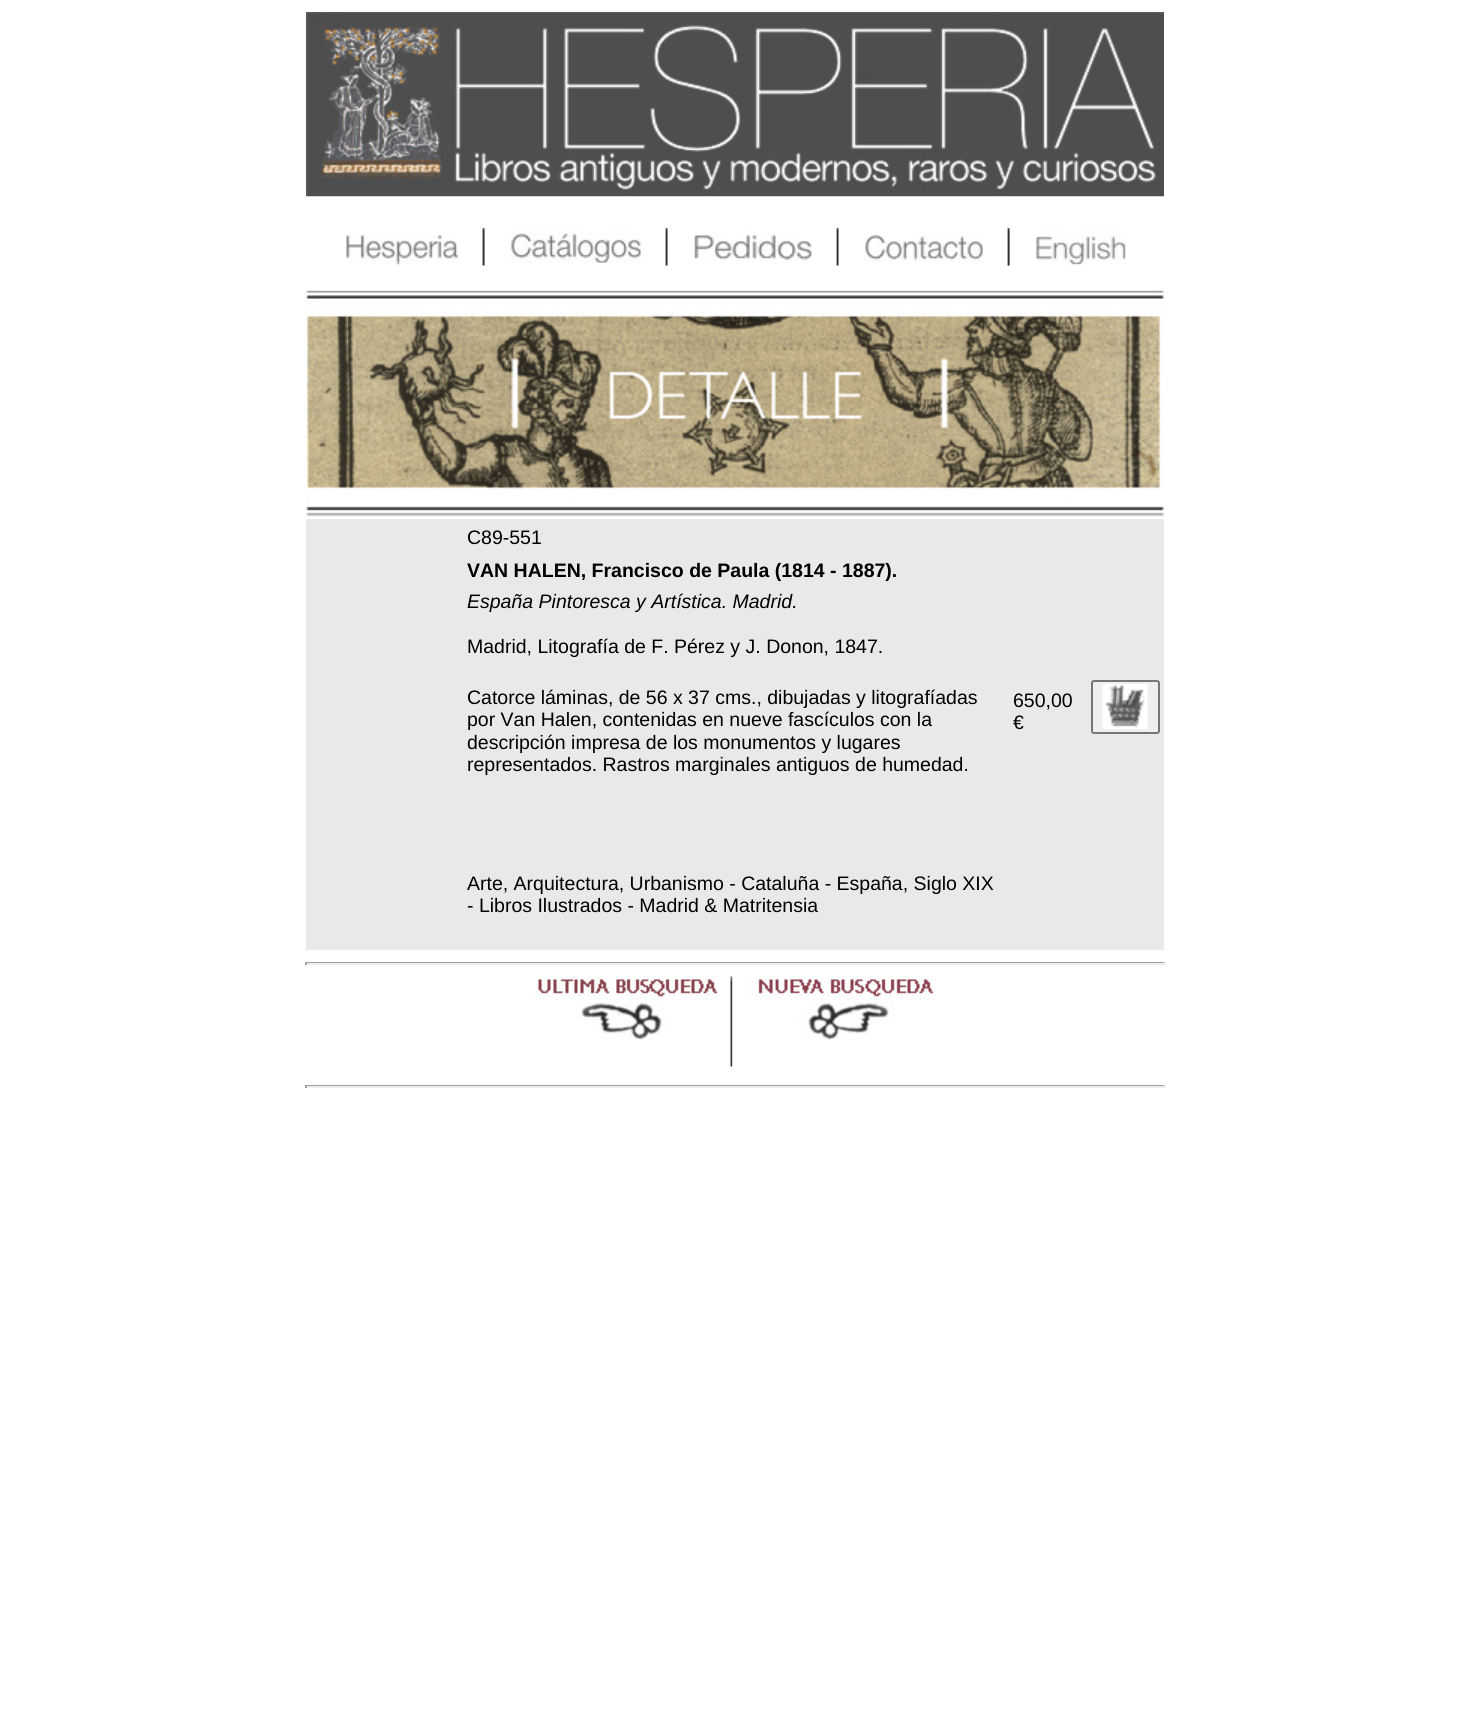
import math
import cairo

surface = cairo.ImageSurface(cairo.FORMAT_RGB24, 1469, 1735)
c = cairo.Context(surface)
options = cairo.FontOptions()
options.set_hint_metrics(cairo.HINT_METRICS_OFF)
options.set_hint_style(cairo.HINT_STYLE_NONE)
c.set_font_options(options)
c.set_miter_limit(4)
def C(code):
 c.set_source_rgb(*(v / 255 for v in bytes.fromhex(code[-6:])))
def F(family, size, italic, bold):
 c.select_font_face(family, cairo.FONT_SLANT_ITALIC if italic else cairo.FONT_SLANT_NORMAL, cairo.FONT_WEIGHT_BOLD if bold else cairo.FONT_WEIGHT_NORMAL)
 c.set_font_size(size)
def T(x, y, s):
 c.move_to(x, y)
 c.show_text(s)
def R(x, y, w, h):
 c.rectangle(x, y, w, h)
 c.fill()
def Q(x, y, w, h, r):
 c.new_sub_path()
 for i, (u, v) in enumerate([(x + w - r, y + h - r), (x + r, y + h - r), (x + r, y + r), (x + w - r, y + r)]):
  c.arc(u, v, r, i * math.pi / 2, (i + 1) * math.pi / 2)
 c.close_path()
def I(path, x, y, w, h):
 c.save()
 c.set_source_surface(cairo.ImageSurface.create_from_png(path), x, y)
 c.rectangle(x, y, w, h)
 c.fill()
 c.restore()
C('ffffff')
c.paint()
I('1.png',306,12,858,185)
c.set_source_rgba(1,1,1,0.5)
R(306,196,858,1)
I('2.png',346,235,112,31)
I('3.png',482,228,3,38)
I('4.png',511,228,130,35)
I('3.png',665,228,3,38)
I('5.png',694,231,118,30)
I('3.png',836,228,3,38)
I('6.png',865,235,118,27)
I('7.png',1007,228,3,38)
I('8.png',1036,230,90,35)
I('9.png',306,290,858,227)
C('e9e9e9')
R(306,519,858,431)
F('Liberation Sans',19.5,0,0)
C('000000')
T(467,544,'C89-551')
C('efefef')
Q(1092,681,67,52,2)
c.fill_preserve()
C('767676')
c.stroke()
I('10.png',1102,684,46,45)
F('Liberation Sans',19.5,0,1)
C('000000')
T(467,577,'VAN HALEN, Francisco de Paula (1814 - 1887).')
F('Liberation Sans',19.5,0,0)
T(1013,707,'650,00')
T(1013,729,'€')
F('Liberation Sans',19.5,1,0)
T(467,608,'España Pintoresca y Artística. Madrid.')
F('Liberation Sans',19.5,0,0)
T(467,653,'Madrid, Litografía de F. Pérez y J. Donon, 1847.')
T(467,704,'Catorce láminas, de 56 x 37 cms., dibujadas y litografíadas')
T(467,726,'por Van Halen, contenidas en nueve fascículos con la')
T(467,749,'descripción impresa de los monumentos y lugares')
T(467,771,'representados. Rastros marginales antiguos de humedad.')
T(467,890,'Arte, Arquitectura, Urbanismo - Cataluña - España, Siglo XIX')
T(467,912,'- Libros Ilustrados - Madrid & Matritensia')
C('9f9f9f')
R(305,962,861,1)
C('eeeeee')
R(1164,962,2,3)
R(305,963,861,2)
C('9f9f9f')
R(305,962,2,3)
I('11.png',535,976,183,64)
I('12.png',730,976,3,91)
I('13.png',750,976,184,64)
R(305,1085,861,1)
C('eeeeee')
R(1164,1085,2,3)
R(305,1086,861,2)
C('9f9f9f')
R(305,1085,2,3)
surface.write_to_png('o.png')
